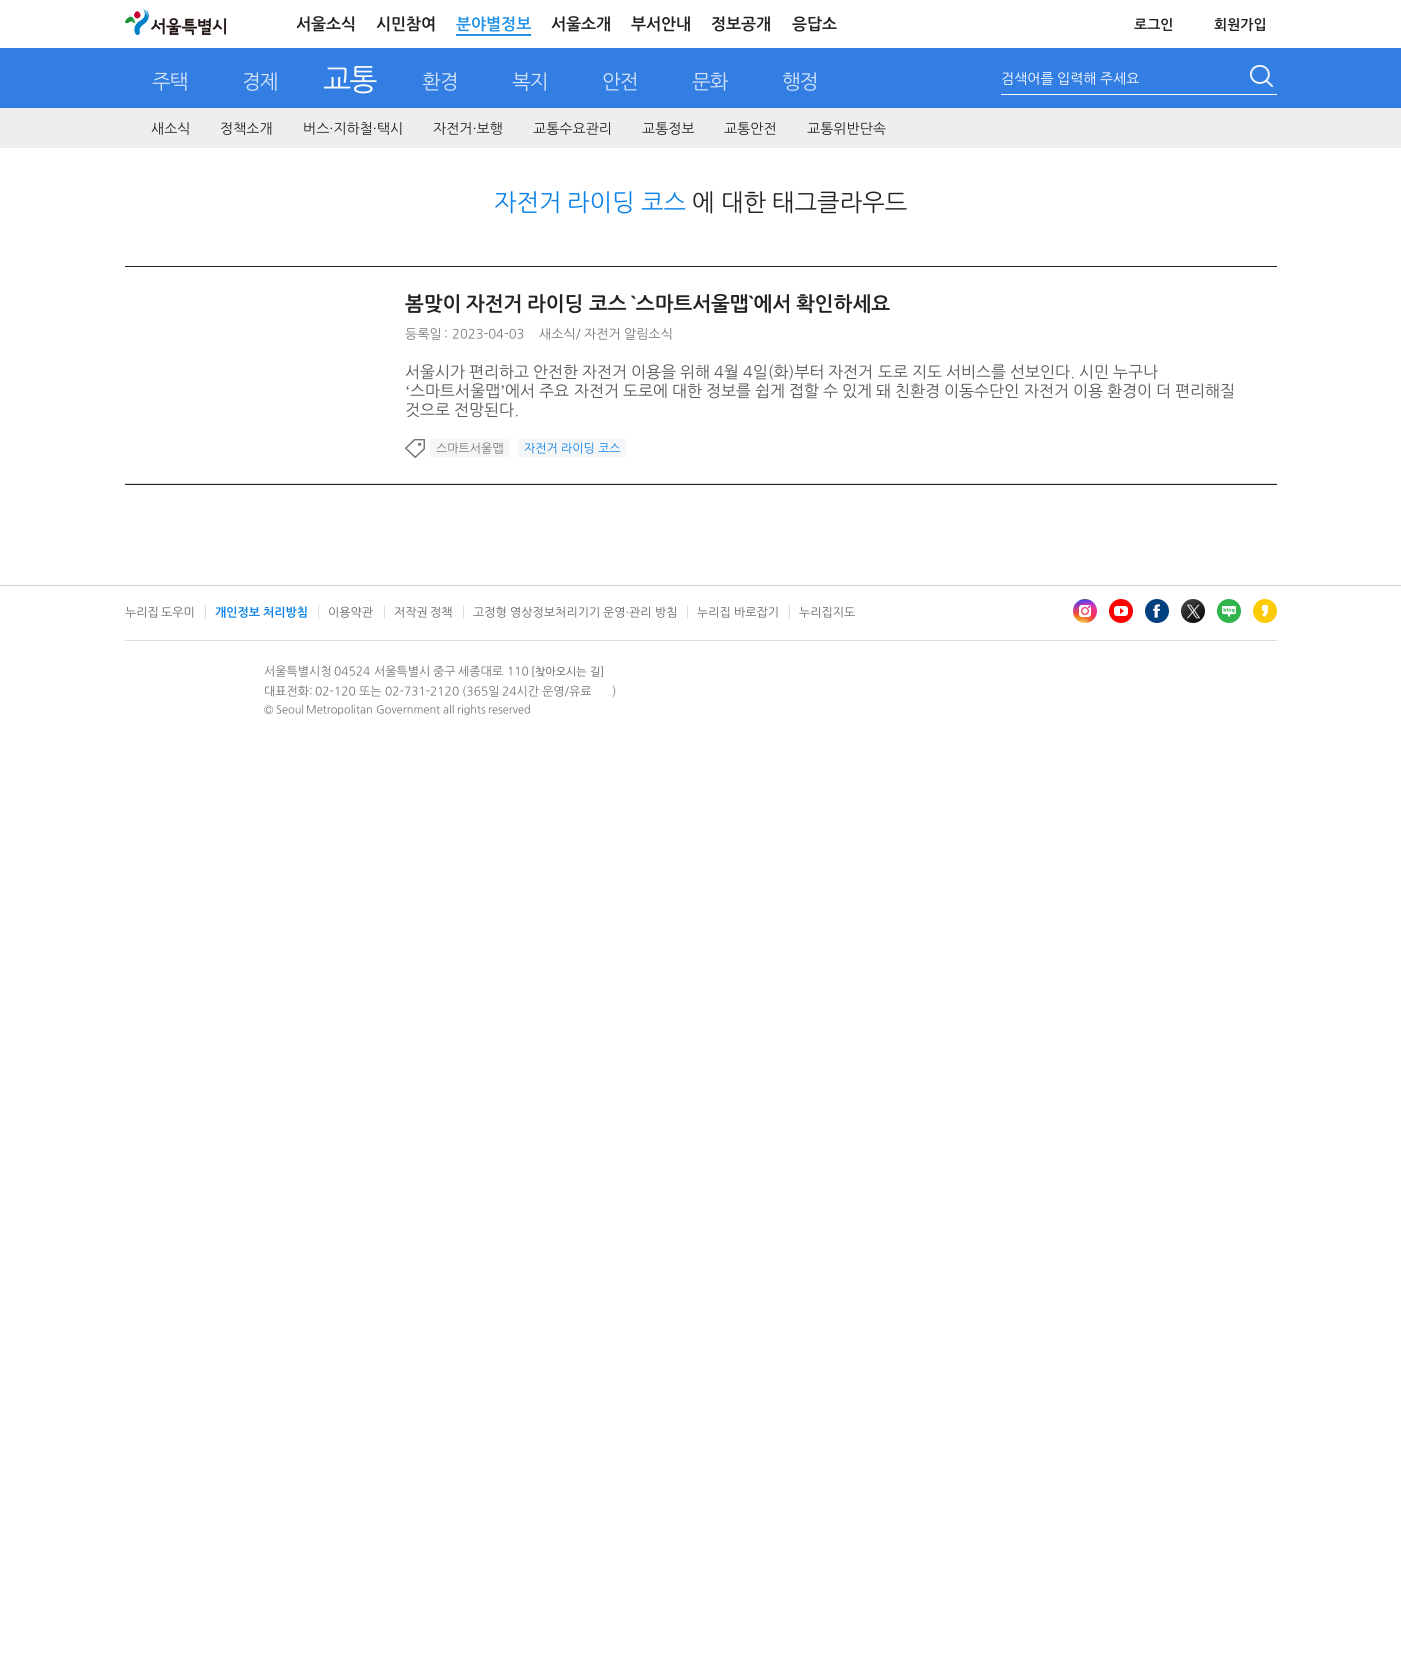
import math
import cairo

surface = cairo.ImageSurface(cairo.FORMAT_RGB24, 1401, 1676)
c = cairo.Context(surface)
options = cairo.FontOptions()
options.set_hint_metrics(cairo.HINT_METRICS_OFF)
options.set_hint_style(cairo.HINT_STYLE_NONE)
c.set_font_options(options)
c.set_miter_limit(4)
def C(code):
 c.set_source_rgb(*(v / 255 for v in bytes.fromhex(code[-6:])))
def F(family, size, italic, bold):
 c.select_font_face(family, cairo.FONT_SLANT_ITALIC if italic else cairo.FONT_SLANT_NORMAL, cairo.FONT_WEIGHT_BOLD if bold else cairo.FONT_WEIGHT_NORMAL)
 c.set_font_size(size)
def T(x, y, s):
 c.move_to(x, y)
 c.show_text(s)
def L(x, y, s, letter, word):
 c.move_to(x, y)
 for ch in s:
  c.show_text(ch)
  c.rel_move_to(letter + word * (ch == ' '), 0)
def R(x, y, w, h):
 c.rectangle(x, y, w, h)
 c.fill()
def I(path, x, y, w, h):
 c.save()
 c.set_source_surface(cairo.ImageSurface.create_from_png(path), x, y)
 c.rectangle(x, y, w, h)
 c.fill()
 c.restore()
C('ffffff')
c.paint()
I('1.png',125,9,101,26)
F('NanumGothic',16,0,1)
C('222222')
T(296,29,'서울소식')
T(376,29,'시민참여')
C('2292e9')
T(456,29,'분야별정보')
R(456,34,75,2)
C('222222')
T(551,29,'서울소개')
T(631,29,'부서안내')
T(711,29,'정보공개')
T(792,29,'응답소')
F('NanumGothic',14,0,1)
T(1134,29,'로그인')
T(1214,29,'회원가입')
C('337ee2')
R(0,48,1401,60)
F('NanumGothic',20,0,0)
C('d6e5f9')
L(152,88,'주택',-1,0)
L(242,88,'경제',-1,0)
F('NanumGothic',30,0,0)
C('ffffff')
L(323,89,'교통',-2,0)
F('NanumGothic',20,0,0)
C('d6e5f9')
L(422,88,'환경',-1,0)
L(512,88,'복지',-1,0)
L(602,88,'안전',-1,0)
L(692,88,'문화',-1,0)
L(782,88,'행정',-1,0)
C('ffffff')
R(1001,94,276,1)
F('NanumGothic',14,0,0)
T(1001,83,'검색어를')
T(1057,83,'입력해')
T(1100,83,'주세요')
I('2.png',1250,65,23,22)
C('eeeeee')
R(0,108,1401,40)
C('222222')
T(151,133,'새소식')
T(220,133,'정책소개')
T(303,133,'버스·지하철·택시')
T(433,133,'자전거·보행')
T(533,133,'교통수요관리')
T(642,133,'교통정보')
T(724,133,'교통안전')
T(807,133,'교통위반단속')
F('NanumGothic',24,0,0)
C('0c82e9')
T(494,210,'자전거')
T(567,210,'라이딩')
T(641,210,'코스')
C('222222')
T(692,210,'에')
T(721,210,'대한')
T(772,210,'태그클라우드')
R(125,266,1152,1)
R(125,484,1152,1)
C('dddddd')
R(125,483,1152,1)
F('NanumGothic',20,0,1)
C('222222')
T(405,310,'봄맞이')
T(466,310,'자전거')
T(527,310,'라이딩')
T(589,310,'코스')
T(631,310,'`스마트서울맵`에서')
T(796,310,'확인하세요')
F('NanumGothic',13,0,0)
C('767676')
T(405,338,'등록일')
T(444,338,':')
T(452,338,'2023-04-03')
T(539,338,'새소식/')
T(584,338,'자전거')
T(624,338,'알림소식')
F('NanumGothic',16,0,0)
C('555555')
T(405,377,'서울시가')
T(469,377,'편리하고')
T(533,377,'안전한')
T(582,377,'자전거')
T(631,377,'이용을')
T(680,377,'위해')
T(714,377,'4월')
T(743,377,'4일(화)부터')
T(828,377,'자전거')
T(878,377,'도로')
T(912,377,'지도')
T(946,377,'서비스를')
T(1010,377,'선보인다.')
T(1079,377,'시민')
T(1113,377,'누구나')
F('Liberation Serif',16,0,0)
T(405,396,'‘')
F('NanumGothic',16,0,0)
T(410,396,'스마트서울맵')
F('Liberation Serif',16,0,0)
T(500,396,'’')
F('NanumGothic',16,0,0)
T(505,396,'에서')
T(539,396,'주요')
T(574,396,'자전거')
T(623,396,'도로에')
T(672,396,'대한')
T(706,396,'정보를')
T(755,396,'쉽게')
T(789,396,'접할')
T(823,396,'수')
T(842,396,'있게')
T(876,396,'돼')
T(895,396,'친환경')
T(944,396,'이동수단인')
T(1024,396,'자전거')
T(1073,396,'이용')
T(1107,396,'환경이')
T(1156,396,'더')
T(1175,396,'편리해질')
T(405,415,'것으로')
T(454,415,'전망된다.')
I('3.png',405,439,20,19)
C('f4f6f7')
R(430,439,79,18)
F('NanumGothic',12,0,0)
C('767676')
T(436,452,'스마트서울맵')
C('f4f6f7')
R(518,439,108,18)
C('0c82e9')
T(524,452,'자전거')
T(561,452,'라이딩')
T(598,452,'코스')
C('d0d0d0')
R(0,585,1401,1)
C('636363')
T(125,616,'누리집')
T(161,616,'도우미')
C('dcdcdc')
R(205,605,1,14)
F('NanumGothic',12,0,1)
C('0c82e9')
T(215,616,'개인정보')
T(263,616,'처리방침')
C('dcdcdc')
R(318,605,1,14)
F('NanumGothic',12,0,0)
C('636363')
T(328,616,'이용약관')
C('dcdcdc')
R(384,605,1,14)
C('636363')
T(394,616,'저작권')
T(430,616,'정책')
C('dcdcdc')
R(463,605,1,14)
C('636363')
T(473,616,'고정형')
T(510,616,'영상정보처리기기')
T(603,616,'운영·관리')
T(655,616,'방침')
C('dcdcdc')
R(687,605,1,14)
C('636363')
T(697,616,'누리집')
T(734,616,'바로잡기')
C('dcdcdc')
R(789,605,1,14)
C('636363')
T(799,616,'누리집지도')
I('4.png',1073,599,24,24)
I('5.png',1109,599,24,24)
I('6.png',1145,599,24,24)
I('7.png',1181,599,24,24)
I('8.png',1217,599,24,24)
I('9.png',1253,599,24,24)
C('dcdcdc')
R(125,640,1152,1)
C('707070')
T(264,675,'서울특별시청')
T(334,675,'04524')
T(374,675,'서울특별시')
T(433,675,'중구')
T(458,675,'세종대로')
T(507,675,'110')
F('NanumGothic',11,0,0)
C('555555')
T(531,675,'[찾아오시는')
T(590,675,'길]')
F('NanumGothic',12,0,0)
C('707070')
T(264,695,'대표전화:')
T(315,695,'02-120')
T(359,695,'또는')
T(385,695,'02-731-2120')
T(462,695,'(365일')
T(502,695,'24시간')
T(542,695,'운영/유료')
T(612,695,')')
F('NanumGothic',11,0,0)
T(264,713,'©')
T(276,713,'Seoul')
T(306,713,'Metropolitan')
T(376,713,'Government')
T(443,713,'all')
T(457,713,'rights')
T(488,713,'reserved')
surface.write_to_png('o.png')
